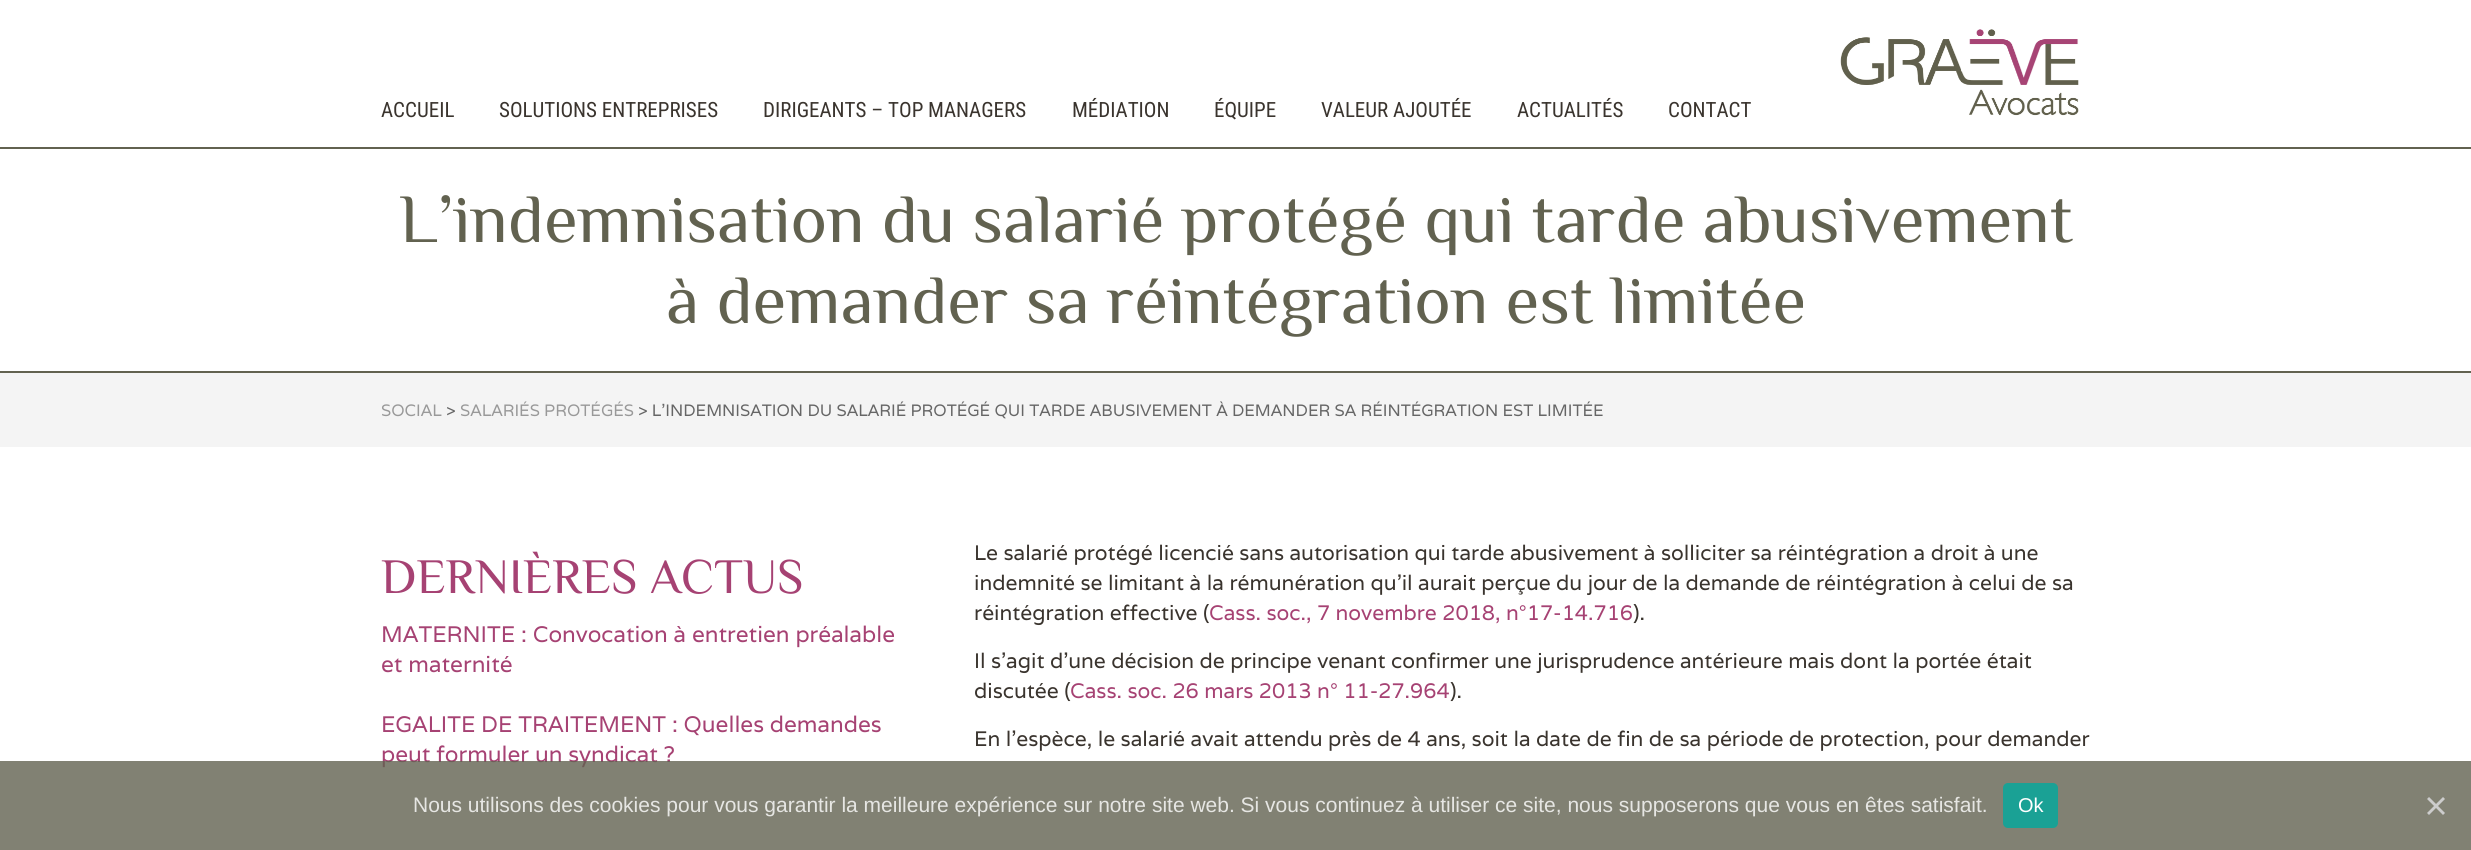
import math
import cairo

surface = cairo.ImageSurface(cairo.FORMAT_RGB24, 2471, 850)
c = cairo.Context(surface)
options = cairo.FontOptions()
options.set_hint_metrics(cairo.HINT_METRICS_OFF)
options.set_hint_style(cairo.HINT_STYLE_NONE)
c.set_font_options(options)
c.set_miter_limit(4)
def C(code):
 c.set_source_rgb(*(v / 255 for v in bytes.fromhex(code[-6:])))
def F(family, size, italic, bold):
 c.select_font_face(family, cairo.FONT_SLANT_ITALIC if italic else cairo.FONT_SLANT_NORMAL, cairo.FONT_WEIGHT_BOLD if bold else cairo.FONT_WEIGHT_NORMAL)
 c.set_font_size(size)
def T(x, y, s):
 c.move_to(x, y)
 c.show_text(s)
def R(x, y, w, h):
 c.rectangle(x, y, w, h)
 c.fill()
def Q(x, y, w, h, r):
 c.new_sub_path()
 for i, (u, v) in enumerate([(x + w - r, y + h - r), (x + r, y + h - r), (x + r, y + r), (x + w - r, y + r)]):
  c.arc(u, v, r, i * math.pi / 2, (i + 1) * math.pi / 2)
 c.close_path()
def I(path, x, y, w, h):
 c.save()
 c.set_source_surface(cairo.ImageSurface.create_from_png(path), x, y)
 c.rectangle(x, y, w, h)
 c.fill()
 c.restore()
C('ffffff')
c.paint()
F('Roboto Condensed',21,0,0)
C('3a342e')
T(381,117,'ACCUEIL')
T(499,117,'SOLUTIONS ENTREPRISES')
T(763,117,'DIRIGEANTS – TOP MANAGERS')
T(1072,117,'MÉDIATION')
T(1214,117,'ÉQUIPE')
T(1321,117,'VALEUR AJOUTÉE')
T(1517,117,'ACTUALITÉS')
T(1668,117,'CONTACT')
I('1.png',1840,29,239,87)
C('626250')
R(0,147,2471,2)
R(0,371,2471,2)
F('Philosopher',69,0,0)
T(399,242,'L’indemnisation du salarié protégé qui tarde abusivement')
T(666,323,'à demander sa réintégration est limitée')
C('f4f4f4')
R(0,373,2471,74)
F('Varela',16.5,0,0)
C('999999')
T(381,416,'SOCIAL')
C('666666')
T(446,416,'>')
C('999999')
T(460,416,'SALARIÉS PROTÉGÉS')
C('666666')
T(638,416,'> L’INDEMNISATION DU SALARIÉ PROTÉGÉ QUI TARDE ABUSIVEMENT À DEMANDER SA RÉINTÉGRATION EST LIMITÉE')
F('Philosopher',49.5,0,0)
C('a64273')
T(381,593,'DERNIÈRES ACTUS')
F('Varela',22.5,0,0)
T(381,642,'MATERNITE : Convocation à entretien préalable')
T(381,672,'et maternité')
T(381,732,'EGALITE DE TRAITEMENT : Quelles demandes')
T(381,762,'peut formuler un syndicat ?')
F('Varela',21,0,0)
C('3a342e')
T(974,560,'Le salarié protégé licencié sans autorisation qui tarde abusivement à solliciter sa réintégration a droit à une')
T(974,590,'indemnité se limitant à la rémunération qu’il aurait perçue du jour de la demande de réintégration à celui de sa')
T(974,620,'réintégration effective (')
C('a64273')
T(1209,620,'Cass. soc., 7 novembre 2018, n°17-14.716')
C('3a342e')
T(1633,620,').')
T(974,668,'Il s’agit d’une décision de principe venant confirmer une jurisprudence antérieure mais dont la portée était')
T(974,698,'discutée (')
C('a64273')
T(1070,698,'Cass. soc. 26 mars 2013 n° 11-27.964')
C('3a342e')
T(1450,698,').')
T(974,746,'En l’espèce, le salarié avait attendu près de 4 ans, soit la date de fin de sa période de protection, pour demander')
c.set_source_rgba(0.384,0.384,0.314,0.8)
R(0,761,2471,89)
F('Liberation Sans',21,0,0)
C('e6e6e3')
T(413,812,'Nous utilisons des cookies pour vous garantir la meilleure expérience sur notre site web. Si vous continuez à utiliser ce site, nous supposerons que vous en êtes satisfait.')
c.set_source_rgba(0,0.663,0.616,0.8)
Q(2003,783,55,45,5)
c.fill()
F('Liberation Sans',20,0,0)
C('ffffff')
T(2018,812,'Ok')
C('cccccc')
c.new_path()
c.move_to(2443,797)
c.line_to(2445,799)
c.line_to(2429,815)
c.line_to(2427,813)
c.close_path()
c.fill()
c.new_path()
c.move_to(2427,799)
c.line_to(2429,797)
c.line_to(2445,813)
c.line_to(2443,815)
c.close_path()
c.fill()
surface.write_to_png('o.png')
